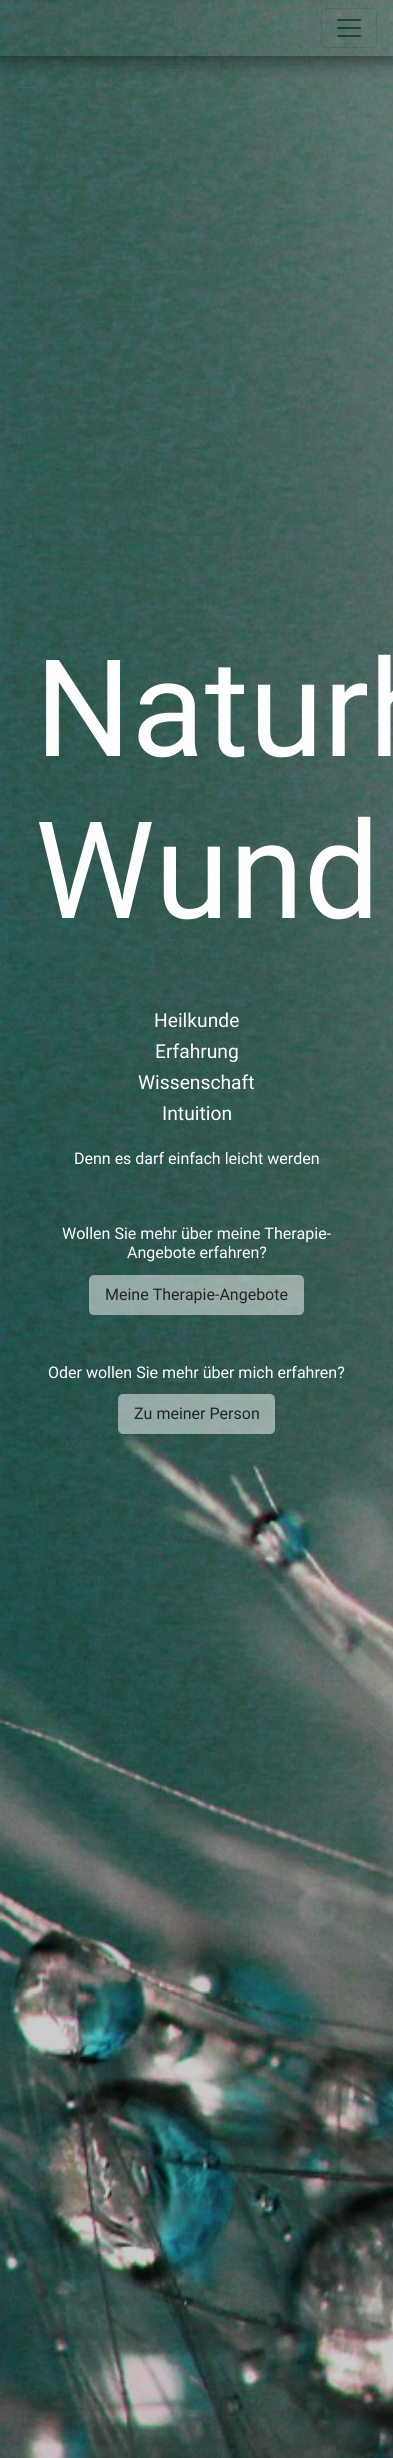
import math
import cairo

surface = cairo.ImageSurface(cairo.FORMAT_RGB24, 393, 2458)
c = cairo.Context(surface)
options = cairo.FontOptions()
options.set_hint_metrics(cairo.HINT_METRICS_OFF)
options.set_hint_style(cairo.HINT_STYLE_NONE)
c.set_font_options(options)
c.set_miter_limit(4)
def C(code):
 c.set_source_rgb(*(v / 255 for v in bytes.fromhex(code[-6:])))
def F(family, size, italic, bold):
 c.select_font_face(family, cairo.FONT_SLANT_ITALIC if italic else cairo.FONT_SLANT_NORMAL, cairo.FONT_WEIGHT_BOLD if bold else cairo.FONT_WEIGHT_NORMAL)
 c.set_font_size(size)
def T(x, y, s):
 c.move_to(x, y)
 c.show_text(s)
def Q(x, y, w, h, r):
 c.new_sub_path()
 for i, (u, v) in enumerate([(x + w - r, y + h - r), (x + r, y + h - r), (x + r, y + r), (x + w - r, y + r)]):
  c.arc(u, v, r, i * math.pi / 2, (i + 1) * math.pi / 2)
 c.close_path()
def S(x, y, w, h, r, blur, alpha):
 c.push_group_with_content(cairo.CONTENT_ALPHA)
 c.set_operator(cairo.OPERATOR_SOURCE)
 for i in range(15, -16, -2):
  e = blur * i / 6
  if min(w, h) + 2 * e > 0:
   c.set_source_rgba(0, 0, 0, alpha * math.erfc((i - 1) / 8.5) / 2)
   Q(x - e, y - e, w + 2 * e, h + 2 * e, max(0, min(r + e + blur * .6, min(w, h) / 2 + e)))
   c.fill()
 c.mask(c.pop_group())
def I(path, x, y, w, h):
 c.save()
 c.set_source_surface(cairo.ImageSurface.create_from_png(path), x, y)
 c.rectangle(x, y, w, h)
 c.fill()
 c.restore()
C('ffffff')
c.paint()
I('1.png',0,0,393,2458)
c.save()
c.rectangle(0,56,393,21)
c.clip()
C('000000')
S(-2,0,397,60,0,10,.5)
c.restore()
Q(321.5,8.5,55,39,3.5)
c.set_source_rgba(0,0,0,0.1)
c.set_line_width(1)
c.stroke()
I('2.png',337,19,24,18)
F('Roboto',135,0,0)
C('ffffff')
T(35,756,'Naturh')
T(35,918,'Wund')
F('Roboto',19.25,0,0)
T(154,1027,'Heilkunde')
T(155,1058,'Erfahrung')
T(138,1089,'Wissenschaft')
T(162,1120,'Intuition')
F('Roboto',16,0,0)
T(74,1164,'Denn es darf einfach leicht werden')
T(62,1239,'Wollen Sie mehr über meine Therapie-')
T(127,1258,'Angebote erfahren?')
c.set_source_rgba(1,1,1,0.5)
Q(89,1275,215,40,5)
c.fill()
C('212529')
T(105,1300,'Meine Therapie-Angebote')
C('ffffff')
T(48,1378,'Oder wollen Sie mehr über mich erfahren?')
c.set_source_rgba(1,1,1,0.5)
Q(118,1394,157,40,5)
c.fill()
C('212529')
T(134,1419,'Zu meiner Person')
surface.write_to_png('o.png')
